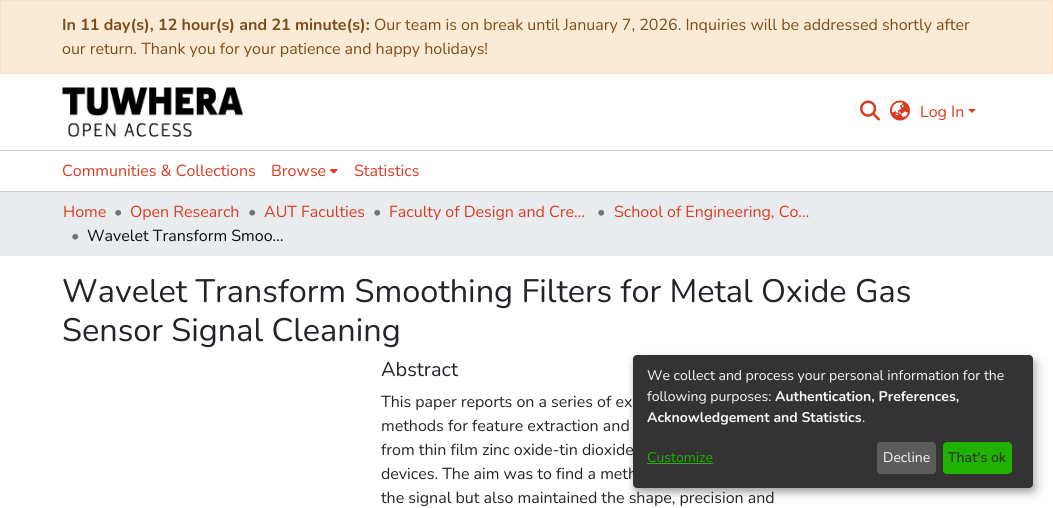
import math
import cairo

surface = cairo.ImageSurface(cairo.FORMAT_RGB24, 1053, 508)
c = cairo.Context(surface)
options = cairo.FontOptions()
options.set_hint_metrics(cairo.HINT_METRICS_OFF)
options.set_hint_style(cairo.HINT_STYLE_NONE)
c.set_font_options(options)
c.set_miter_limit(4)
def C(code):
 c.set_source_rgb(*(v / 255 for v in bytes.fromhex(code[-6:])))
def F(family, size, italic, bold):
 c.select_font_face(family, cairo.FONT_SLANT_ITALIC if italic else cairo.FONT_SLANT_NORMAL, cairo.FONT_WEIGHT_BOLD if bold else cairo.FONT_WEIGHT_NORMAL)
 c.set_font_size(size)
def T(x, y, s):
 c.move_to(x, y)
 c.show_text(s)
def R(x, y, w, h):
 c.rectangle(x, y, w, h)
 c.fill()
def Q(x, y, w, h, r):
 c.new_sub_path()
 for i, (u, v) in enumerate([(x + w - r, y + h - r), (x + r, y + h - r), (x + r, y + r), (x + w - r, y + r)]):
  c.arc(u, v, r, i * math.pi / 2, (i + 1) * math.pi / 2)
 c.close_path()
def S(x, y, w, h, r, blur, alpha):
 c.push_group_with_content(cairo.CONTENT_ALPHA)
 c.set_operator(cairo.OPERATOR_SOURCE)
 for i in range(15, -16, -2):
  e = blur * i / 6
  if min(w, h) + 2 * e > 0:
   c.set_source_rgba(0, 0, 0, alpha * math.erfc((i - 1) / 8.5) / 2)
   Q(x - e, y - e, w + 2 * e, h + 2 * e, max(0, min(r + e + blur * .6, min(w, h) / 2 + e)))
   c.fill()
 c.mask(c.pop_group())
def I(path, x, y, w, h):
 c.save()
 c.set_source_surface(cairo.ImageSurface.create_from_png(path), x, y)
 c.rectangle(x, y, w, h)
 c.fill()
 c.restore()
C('ffffff')
c.paint()
C('fbead6')
c.rectangle(.5,.5,1052,73)
c.fill_preserve()
C('fae1c6')
c.set_line_width(1)
c.stroke()
F('Nunito',16,0,1)
C('7b4d1b')
T(62,30,'In 11 day(s), 12 hour(s) and 21 minute(s):')
F('Nunito',16,0,0)
T(374,30,'Our team is on break until January 7, 2026. Inquiries will be addressed shortly after')
T(62,54,'our return. Thank you for your patience and happy holidays!')
C('ced4da')
R(0,191,1053,1)
I('1.png',62,87,182,50)
I('2.png',860,100,20,21)
I('3.png',890,100,20,21)
C('d93b20')
T(920,117,'Log In')
c.new_path()
c.move_to(968,109)
c.line_to(976,109)
c.line_to(972,113)
c.close_path()
c.fill()
C('ced4da')
R(0,150,1053,1)
C('d93b20')
T(62,176,'Communities & Collections')
T(271,176,'Browse')
I('4.png',330,169,8,5)
T(354,176,'Statistics')
C('e9ecef')
R(0,192,1053,64)
C('d93b20')
T(63,217,'Home')
C('6c757d')
T(114,217,'•')
C('d93b20')
T(130,217,'Open Research')
C('6c757d')
T(248,217,'•')
C('d93b20')
T(264,217,'AUT Faculties')
C('6c757d')
T(373,217,'•')
C('d93b20')
T(389,217,'Faculty of Design and Cre…')
C('6c757d')
T(597,217,'•')
C('d93b20')
T(614,217,'School of Engineering, Co…')
C('6c757d')
T(71,241,'•')
C('040d11')
T(87,241,'Wavelet Transform Smoo…')
F('Nunito',32.45,0,0)
C('212529')
T(62,302,'Wavelet Transform Smoothing Filters for Metal Oxide Gas')
T(62,341,'Sensor Signal Cleaning')
F('Nunito',20,0,0)
T(381,376,'Abstract')
F('Nunito',16,0,0)
T(381,407,'This paper reports on a series of ex')
T(381,431,'methods for feature extraction and')
T(381,455,'from thin film zinc oxide-tin dioxide')
T(381,479,'devices. The aim was to find a meth')
T(381,503,'the signal but also maintained the shape, precision and')
C('000000')
S(638,360,400,133,4,5,.19)
S(633,359,400,133,4,3,.2)
C('333333')
Q(633,355,400,133,4)
c.fill()
F('Nunito',14,0,0)
C('fafafa')
T(647,380,'We collect and process your personal information for the')
T(647,401,'following purposes:')
F('Nunito',14,0,1)
T(775,401,'Authentication, Preferences,')
T(647,422,'Acknowledgement and Statistics')
F('Nunito',14,0,0)
T(862,422,'.')
C('1fb300')
T(647,462,'Customize')
R(647,463,66,1)
C('5c5c5c')
Q(877,442,59,32,4)
c.fill()
C('fafafa')
T(883,462,'Decline')
C('1fb300')
Q(943,442,69,32,4)
c.fill()
F('Nunito SemiBold',14,0,0)
C('333333')
T(948,462,'That\'s ok')
surface.write_to_png('o.png')
